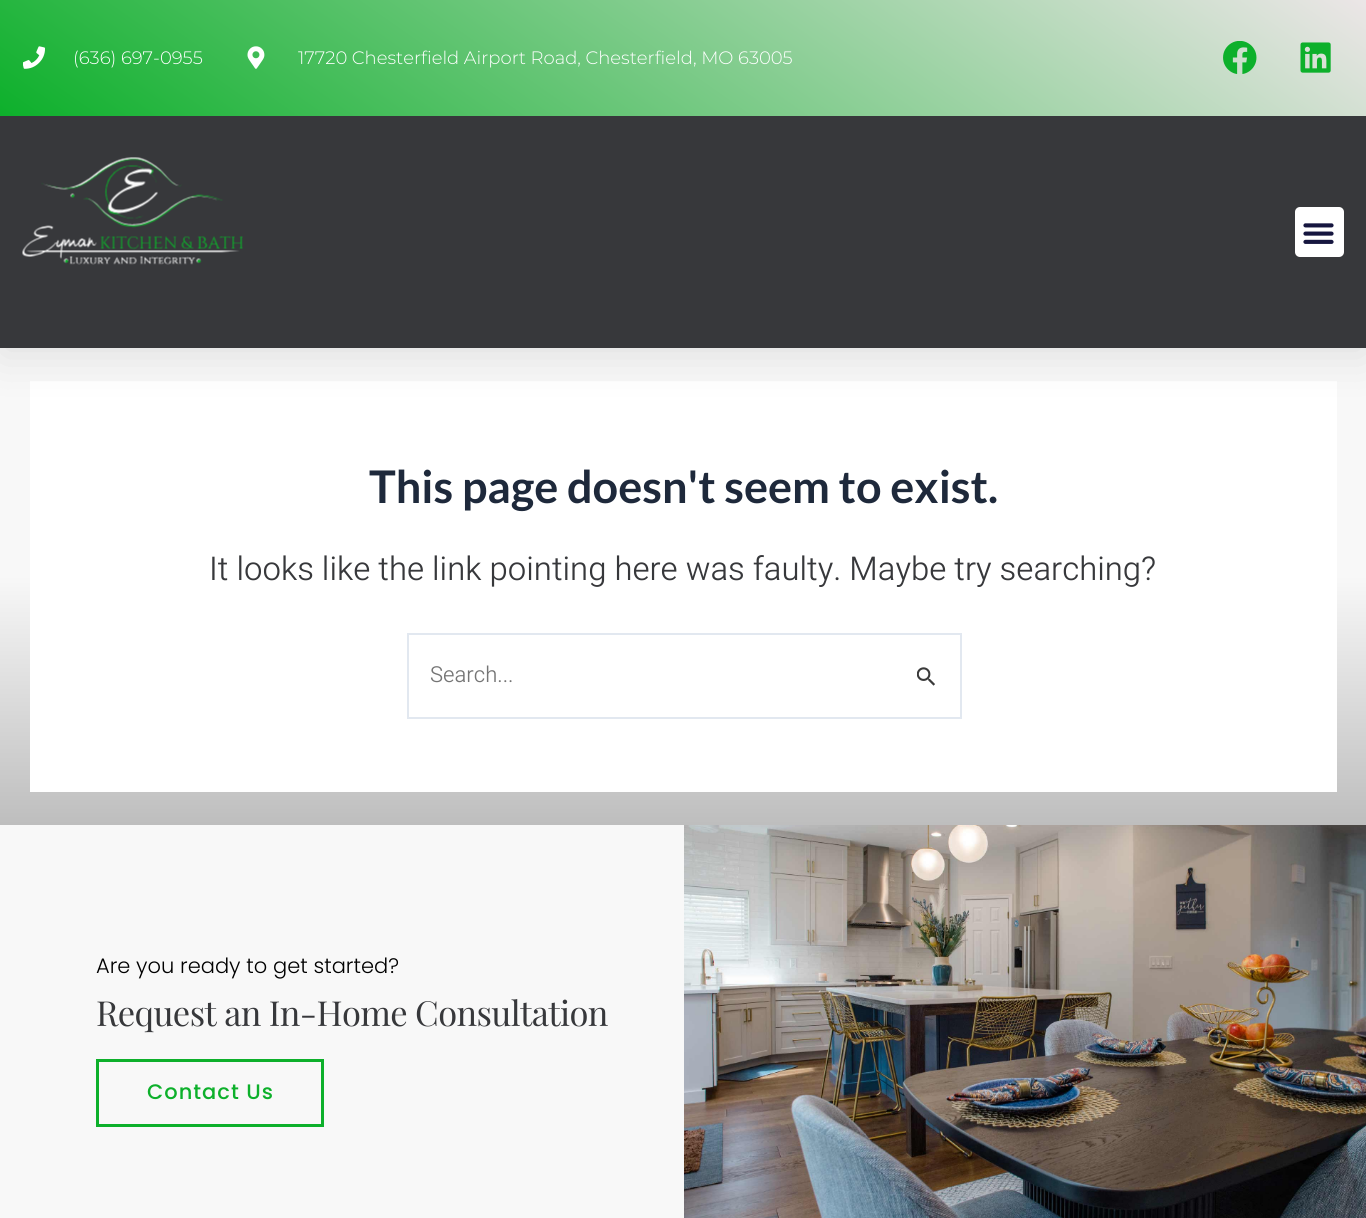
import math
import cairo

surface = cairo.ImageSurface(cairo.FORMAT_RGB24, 1366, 1218)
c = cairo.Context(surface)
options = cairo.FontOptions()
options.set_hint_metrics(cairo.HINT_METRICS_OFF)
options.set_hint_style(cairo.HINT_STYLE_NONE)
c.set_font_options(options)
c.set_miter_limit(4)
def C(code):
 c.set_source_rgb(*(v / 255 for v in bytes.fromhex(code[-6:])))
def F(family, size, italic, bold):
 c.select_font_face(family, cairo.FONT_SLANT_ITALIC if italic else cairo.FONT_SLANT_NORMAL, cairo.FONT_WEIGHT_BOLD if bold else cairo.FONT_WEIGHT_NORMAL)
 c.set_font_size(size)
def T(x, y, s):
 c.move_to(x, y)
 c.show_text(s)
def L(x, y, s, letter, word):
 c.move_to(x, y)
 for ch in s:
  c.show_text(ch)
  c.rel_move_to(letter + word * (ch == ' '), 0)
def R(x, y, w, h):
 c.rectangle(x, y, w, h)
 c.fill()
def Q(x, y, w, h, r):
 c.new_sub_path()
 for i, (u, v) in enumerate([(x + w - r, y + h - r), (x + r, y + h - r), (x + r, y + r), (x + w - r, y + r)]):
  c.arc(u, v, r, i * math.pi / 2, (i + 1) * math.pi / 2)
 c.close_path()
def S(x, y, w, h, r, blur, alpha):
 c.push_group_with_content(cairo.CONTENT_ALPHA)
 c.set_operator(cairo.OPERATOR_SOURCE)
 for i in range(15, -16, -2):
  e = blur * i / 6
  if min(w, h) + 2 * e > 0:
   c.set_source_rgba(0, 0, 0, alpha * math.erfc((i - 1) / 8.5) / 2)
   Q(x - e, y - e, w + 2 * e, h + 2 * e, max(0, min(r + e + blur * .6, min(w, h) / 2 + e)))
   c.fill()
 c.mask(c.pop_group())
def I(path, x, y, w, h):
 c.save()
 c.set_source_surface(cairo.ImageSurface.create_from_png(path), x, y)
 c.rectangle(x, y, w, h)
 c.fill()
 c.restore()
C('ffffff')
c.paint()
gradient = cairo.LinearGradient(683,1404,683,0)
gradient.add_color_stop_rgba(0,0.212,0.212,0.212,1)
gradient.add_color_stop_rgba(.59,0.973,0.973,0.973,1)
c.set_source(gradient)
R(0,348,1366,477)
C('ffffff')
R(30,381,1307,411)
C('000000')
S(0,8,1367,348,0,22.5,.1)
gradient = cairo.LinearGradient(431,418,935,-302)
gradient.add_color_stop_rgba(0,0.051,0.69,0.169,1)
gradient.add_color_stop_rgba(1,0.925,0.902,0.906,1)
c.set_source(gradient)
R(0,0,1366,116)
I('1.png',23,46,22,23)
F('Montserrat Light',18,0,0)
C('ffffff')
T(73,64,'(636) 697-0955')
I('2.png',247,46,18,23)
T(298,64,'17720 Chesterfield Airport Road, Chesterfield, MO 63005')
I('3.png',1223,41,34,33)
I('4.png',1300,42,31,31)
C('37383b')
R(0,116,1366,232)
I('5.png',22,157,221,108)
C('ffffff')
Q(1295,207,49,50,5)
c.fill()
I('6.png',1303,223,31,21)
F('Lato',45,0,1)
C('1e293b')
T(369,503,'This page doesn\'t seem to exist.')
F('Heebo Light',32.8,0,0)
C('37383b')
T(209,580,'It looks like the link pointing here was faulty. Maybe try searching?')
c.rectangle(408,634,553,84)
C('e2e8f0')
c.stroke()
F('Heebo Light',22,0,0)
C('757575')
T(430,682,'Search...')
I('7.png',917,667,18,19)
C('f8f8f8')
R(0,825,684,393)
F('Poppins Light',21,0,0)
C('000000')
T(96,973,'Are you ready to get started?')
F('Playfair Display',34.5,0,0)
C('37383b')
L(96,1026,'Request an In-Home Consultation',-.6,0)
c.rectangle(97.5,1060.5,225,65)
C('0db02b')
c.set_line_width(3)
c.stroke()
F('Poppins Medium',21,0,0)
L(147,1099,'Contact Us',1,0)
I('8.png',684,825,682,393)
surface.write_to_png('o.png')
